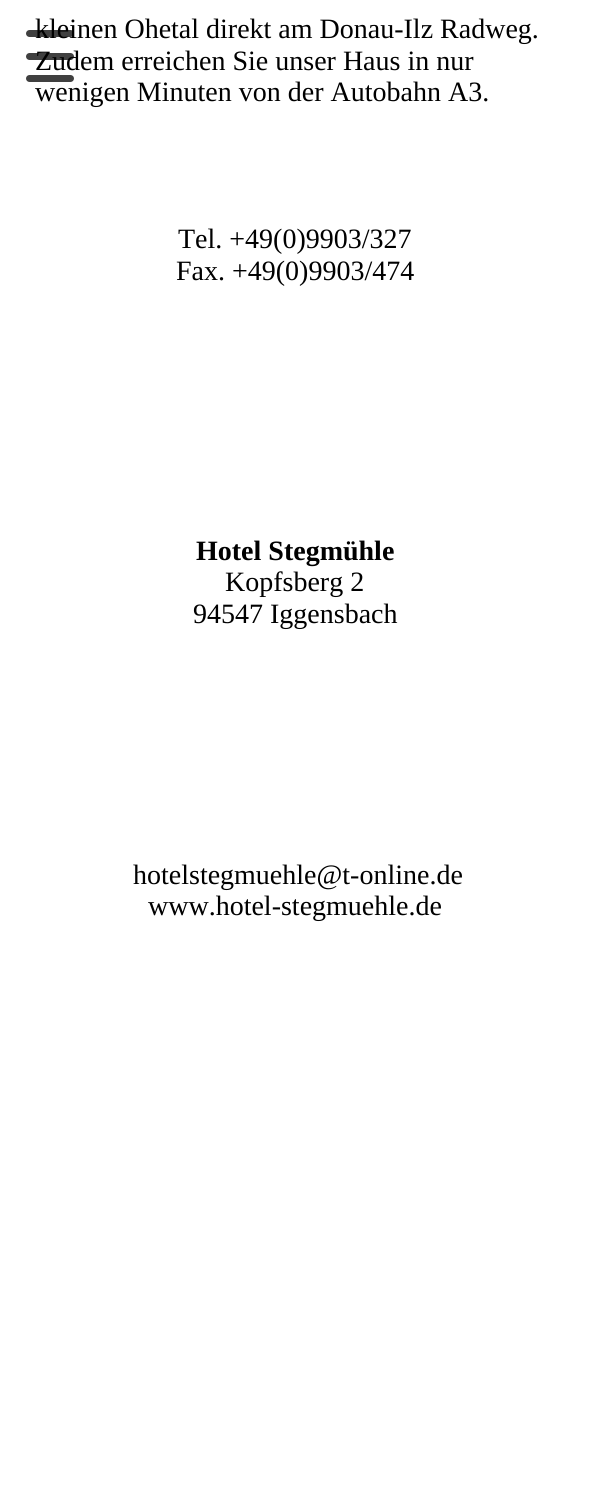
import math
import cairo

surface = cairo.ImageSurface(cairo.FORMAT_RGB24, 589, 1503)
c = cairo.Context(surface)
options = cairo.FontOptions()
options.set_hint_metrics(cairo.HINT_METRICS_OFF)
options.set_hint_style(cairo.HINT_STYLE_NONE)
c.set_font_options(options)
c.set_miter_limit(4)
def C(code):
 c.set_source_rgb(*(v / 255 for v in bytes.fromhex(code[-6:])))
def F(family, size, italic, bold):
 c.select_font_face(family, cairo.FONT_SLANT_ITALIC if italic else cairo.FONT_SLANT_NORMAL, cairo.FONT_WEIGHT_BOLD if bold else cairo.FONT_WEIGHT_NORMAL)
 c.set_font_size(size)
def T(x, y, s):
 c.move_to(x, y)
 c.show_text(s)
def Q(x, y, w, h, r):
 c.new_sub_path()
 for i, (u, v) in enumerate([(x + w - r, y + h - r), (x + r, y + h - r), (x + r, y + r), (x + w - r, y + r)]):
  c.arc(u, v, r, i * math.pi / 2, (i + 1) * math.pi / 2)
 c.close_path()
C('ffffff')
c.paint()
F('Liberation Serif',28,0,0)
C('000000')
T(35,38,'kleinen Ohetal direkt am Donau-Ilz Radweg.')
T(35,70,'Zudem erreichen Sie unser Haus in nur')
T(35,101,'wenigen Minuten von der Autobahn A3.')
T(178,248,'Tel. +49(0)9903/327')
T(176,280,'Fax. +49(0)9903/474')
F('Liberation Serif',28,0,1)
T(196,560,'Hotel Stegmühle')
F('Liberation Serif',28,0,0)
T(225,591,'Kopfsberg 2')
T(193,623,'94547 Iggensbach')
T(133,884,'hotelstegmuehle@t-online.de')
T(148,915,'www.hotel-stegmuehle.de')
c.set_source_rgba(0,0,0,0.75)
Q(26,30,48,7,3.5)
c.fill()
Q(26,53,48,7,3.5)
c.fill()
C('404040')
Q(26,75,48,7,3.5)
c.fill()
surface.write_to_png('o.png')
